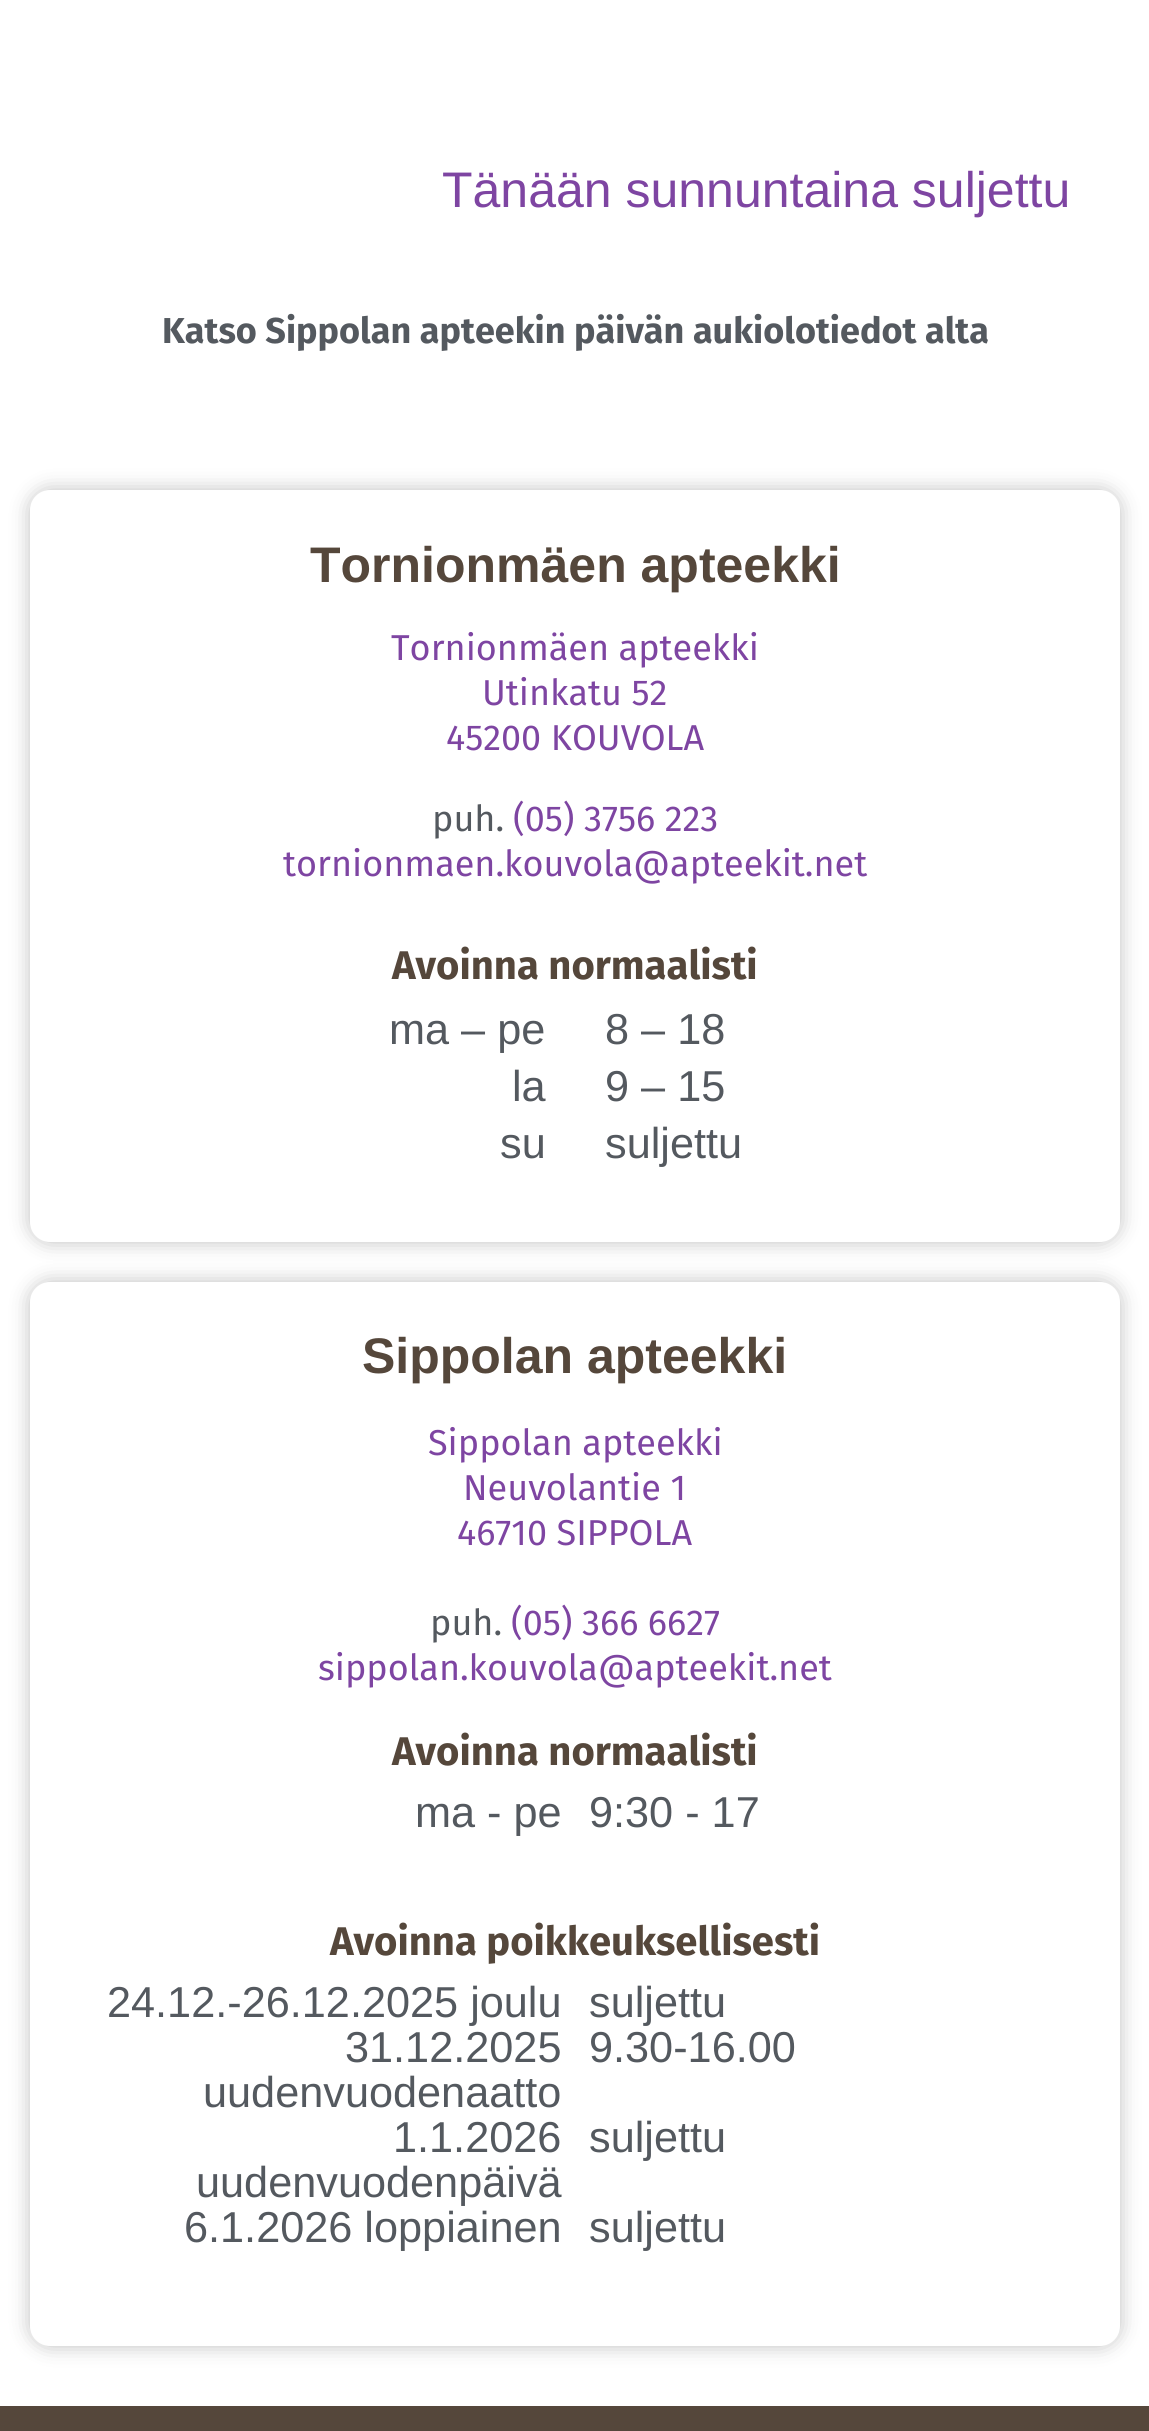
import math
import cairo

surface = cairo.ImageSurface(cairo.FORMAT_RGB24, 1149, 2431)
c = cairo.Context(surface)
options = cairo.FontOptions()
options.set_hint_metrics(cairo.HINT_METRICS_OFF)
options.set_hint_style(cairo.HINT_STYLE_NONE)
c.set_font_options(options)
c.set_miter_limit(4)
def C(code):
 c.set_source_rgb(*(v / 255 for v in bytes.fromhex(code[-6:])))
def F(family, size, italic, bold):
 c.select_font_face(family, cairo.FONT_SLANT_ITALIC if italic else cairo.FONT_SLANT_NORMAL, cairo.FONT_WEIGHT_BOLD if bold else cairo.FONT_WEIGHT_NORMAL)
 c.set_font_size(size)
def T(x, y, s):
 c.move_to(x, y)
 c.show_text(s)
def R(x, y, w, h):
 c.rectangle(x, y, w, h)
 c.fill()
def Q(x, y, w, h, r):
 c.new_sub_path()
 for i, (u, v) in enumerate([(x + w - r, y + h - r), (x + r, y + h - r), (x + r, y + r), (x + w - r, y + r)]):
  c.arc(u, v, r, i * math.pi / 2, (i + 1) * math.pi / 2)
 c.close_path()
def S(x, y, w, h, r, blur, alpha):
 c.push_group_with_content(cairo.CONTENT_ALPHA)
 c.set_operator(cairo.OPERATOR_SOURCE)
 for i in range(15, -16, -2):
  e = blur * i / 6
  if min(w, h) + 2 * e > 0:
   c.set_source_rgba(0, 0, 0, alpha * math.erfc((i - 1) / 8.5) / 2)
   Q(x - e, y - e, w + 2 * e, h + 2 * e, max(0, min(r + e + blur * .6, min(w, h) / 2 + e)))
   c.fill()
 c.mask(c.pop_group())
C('ffffff')
c.paint()
F('Liberation Sans',50,0,0)
C('7e45a2')
T(442,207,'Tänään sunnuntaina suljettu')
F('Fira Sans',36,0,1)
C('54595f')
T(162,343,'Katso Sippolan apteekin päivän aukiolotiedot alta')
C('000000')
S(30,490,1090,752,20,10,.25)
C('ffffff')
Q(30,490,1090,752,20)
c.fill()
F('Liberation Sans',50,0,1)
C('55473b')
T(310,582,'Tornionmäen apteekki')
F('Fira Sans',36,0,0)
C('7e45a2')
T(391,660,'Tornionmäen apteekki')
T(482,705,'Utinkatu 52')
T(446,750,'45200 KOUVOLA')
C('54595f')
T(432,831,'puh.')
C('7e45a2')
T(513,831,'(05) 3756 223')
T(283,876,'tornionmaen.kouvola@apteekit.net')
F('Fira Sans',40,0,1)
C('55473b')
T(392,979,'Avoinna normaalisti')
F('Liberation Sans',43.25,0,0)
C('54595f')
T(389,1044,'ma – pe')
T(605,1044,'8 – 18')
T(512,1101,'la')
T(605,1101,'9 – 15')
T(500,1158,'su')
T(605,1158,'suljettu')
C('000000')
S(30,1282,1090,1064,20,10,.25)
C('ffffff')
Q(30,1282,1090,1064,20)
c.fill()
F('Liberation Sans',50,0,1)
C('55473b')
T(362,1373,'Sippolan apteekki')
F('Fira Sans',36,0,0)
C('7e45a2')
T(428,1455,'Sippolan apteekki')
T(463,1500,'Neuvolantie 1')
T(457,1545,'46710 SIPPOLA')
C('54595f')
T(430,1635,'puh.')
C('7e45a2')
T(511,1635,'(05) 366 6627')
T(318,1680,'sippolan.kouvola@apteekit.net')
F('Fira Sans',40,0,1)
C('55473b')
T(392,1765,'Avoinna normaalisti')
F('Liberation Sans',43.25,0,0)
C('54595f')
T(415,1827,'ma - pe')
T(589,1827,'9:30 - 17')
F('Fira Sans',40,0,1)
C('55473b')
T(330,1955,'Avoinna poikkeuksellisesti')
F('Liberation Sans',43.25,0,0)
C('54595f')
T(107,2017,'24.12.-26.12.2025 joulu')
T(589,2017,'suljettu')
T(345,2062,'31.12.2025')
T(203,2107,'uudenvuodenaatto')
T(589,2062,'9.30-16.00')
T(393,2152,'1.1.2026')
T(196,2197,'uudenvuodenpäivä')
T(589,2152,'suljettu')
T(184,2242,'6.1.2026 loppiainen')
T(589,2242,'suljettu')
C('55473b')
R(0,2406,1149,25)
surface.write_to_png('o.png')
